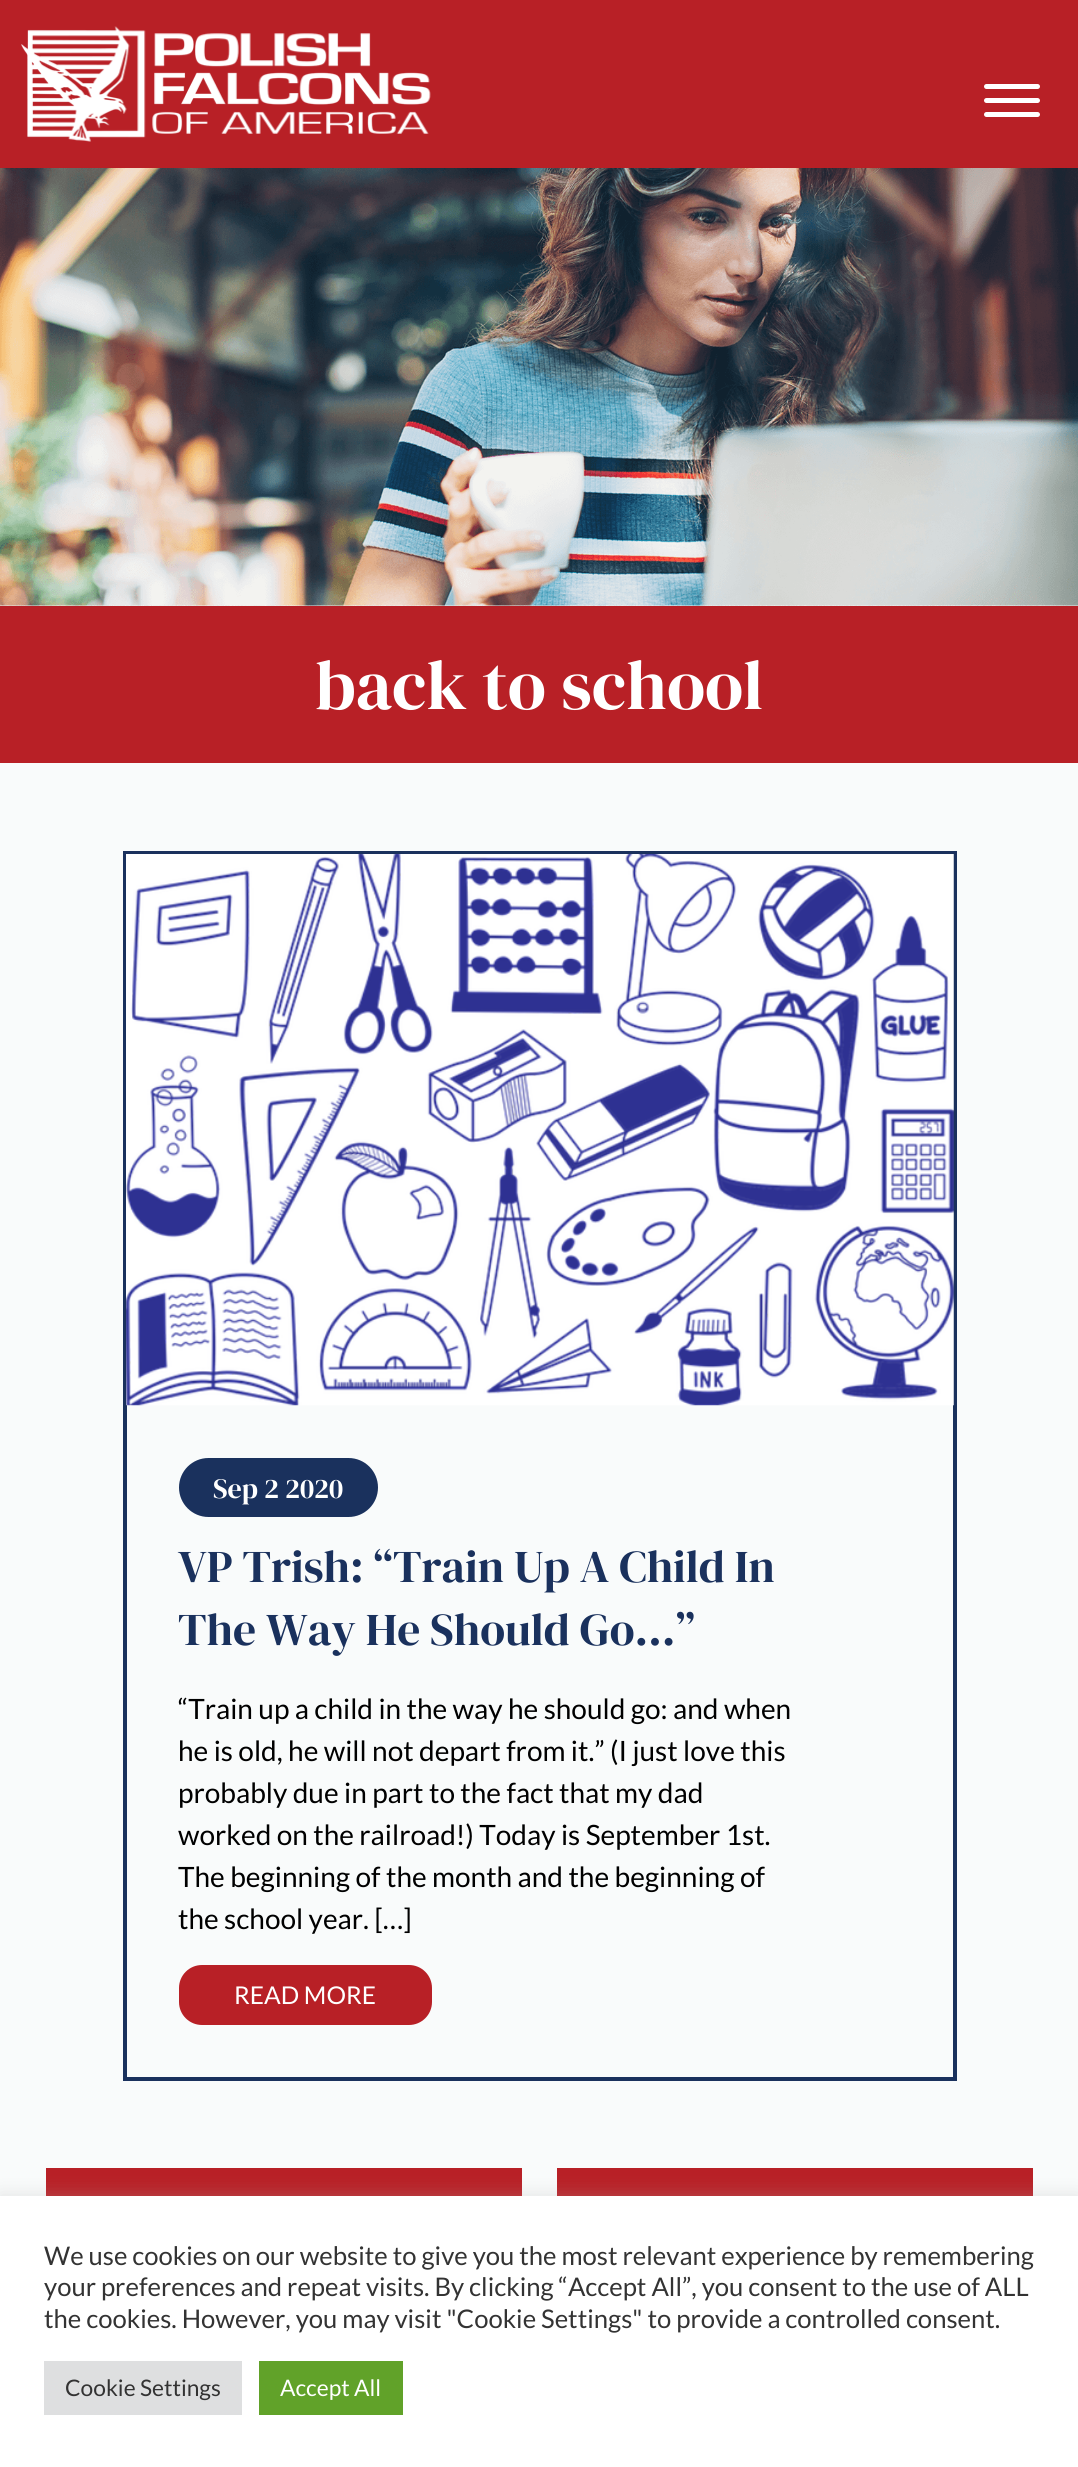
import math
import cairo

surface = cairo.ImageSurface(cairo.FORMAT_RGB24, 1078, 2467)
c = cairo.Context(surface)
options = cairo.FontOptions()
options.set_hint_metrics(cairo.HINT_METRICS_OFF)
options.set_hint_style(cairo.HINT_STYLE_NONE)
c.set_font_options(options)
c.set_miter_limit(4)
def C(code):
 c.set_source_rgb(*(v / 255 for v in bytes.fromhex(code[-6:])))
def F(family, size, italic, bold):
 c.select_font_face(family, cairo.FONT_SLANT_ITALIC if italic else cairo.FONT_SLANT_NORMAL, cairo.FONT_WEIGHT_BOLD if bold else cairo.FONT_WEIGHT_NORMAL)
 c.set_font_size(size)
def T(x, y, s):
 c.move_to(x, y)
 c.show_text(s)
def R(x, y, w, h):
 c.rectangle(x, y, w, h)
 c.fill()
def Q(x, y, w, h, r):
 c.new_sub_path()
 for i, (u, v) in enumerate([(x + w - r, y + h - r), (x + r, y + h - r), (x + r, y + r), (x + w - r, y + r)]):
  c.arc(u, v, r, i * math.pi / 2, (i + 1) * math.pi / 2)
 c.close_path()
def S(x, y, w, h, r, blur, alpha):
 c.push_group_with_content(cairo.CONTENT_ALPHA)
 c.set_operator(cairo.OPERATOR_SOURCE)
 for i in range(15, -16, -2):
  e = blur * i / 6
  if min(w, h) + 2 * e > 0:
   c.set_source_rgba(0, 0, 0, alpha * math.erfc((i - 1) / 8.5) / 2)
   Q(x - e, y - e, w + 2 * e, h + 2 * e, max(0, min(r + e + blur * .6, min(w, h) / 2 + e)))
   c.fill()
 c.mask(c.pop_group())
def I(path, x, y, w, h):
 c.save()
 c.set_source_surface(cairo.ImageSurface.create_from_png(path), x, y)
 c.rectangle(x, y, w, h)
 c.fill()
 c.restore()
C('ffffff')
c.paint()
I('1.png',0,605,1078,1)
C('b82026')
R(0,0,1078,168)
I('2.png',21,26,410,116)
C('ffffff')
Q(984,84,56,5,2.5)
c.fill()
Q(984,98,56,5,2.5)
c.fill()
Q(984,112,56,5,2.5)
c.fill()
I('3.png',0,168,1078,438)
C('b82026')
R(0,606,1078,157)
F('DM Serif Display',70,0,0)
C('ffffff')
T(315,709,'back to school')
C('f9fbfb')
R(0,763,1078,1433)
c.rectangle(125,853,830,1226)
C('1a315d')
c.set_line_width(4)
c.stroke()
I('4.png',126,854,828,552)
Q(179,1458,199,59,29.5)
c.fill()
F('DM Serif Display',28,0,0)
C('ffffff')
T(213,1498,'Sep 2 2020')
F('DM Serif Display',45.5,0,0)
C('1a315d')
T(178,1582,'VP Trish: “Train Up A Child In')
T(178,1645,'The Way He Should Go…”')
F('Lato',28,0,0)
C('000000')
T(178,1719,'“Train up a child in the way he should go: and when')
T(178,1761,'he is old, he will not depart from it.” (I just love this')
T(178,1803,'probably due in part to the fact that my dad')
T(178,1845,'worked on the railroad!) Today is September 1st.')
T(178,1887,'The beginning of the month and the beginning of')
T(178,1929,'the school year. […]')
C('b82026')
Q(179,1965,253,60,23)
c.fill()
F('Lato',24.5,0,0)
C('ffffff')
T(234,2004,'READ MORE')
C('b82026')
R(46,2168,476,28)
R(557,2168,476,28)
C('acabab')
S(0,2195,1078,271,0,9,.3)
C('ffffff')
R(0,2196,1078,271)
F('Lato',25.65,0,0)
C('333333')
T(44,2265,'We use cookies on our website to give you the most relevant experience by remembering')
T(44,2296,'your preferences and repeat visits. By clicking “Accept All”, you consent to the use of ALL')
T(44,2328,'the cookies. However, you may visit "Cookie Settings" to provide a controlled consent.')
C('dedfe0')
R(44,2361,198,54)
F('Lato',22.75,0,0)
C('333333')
T(65,2396,'Cookie Settings')
C('61a229')
R(259,2361,144,54)
C('ffffff')
T(280,2396,'Accept All')
surface.write_to_png('o.png')
